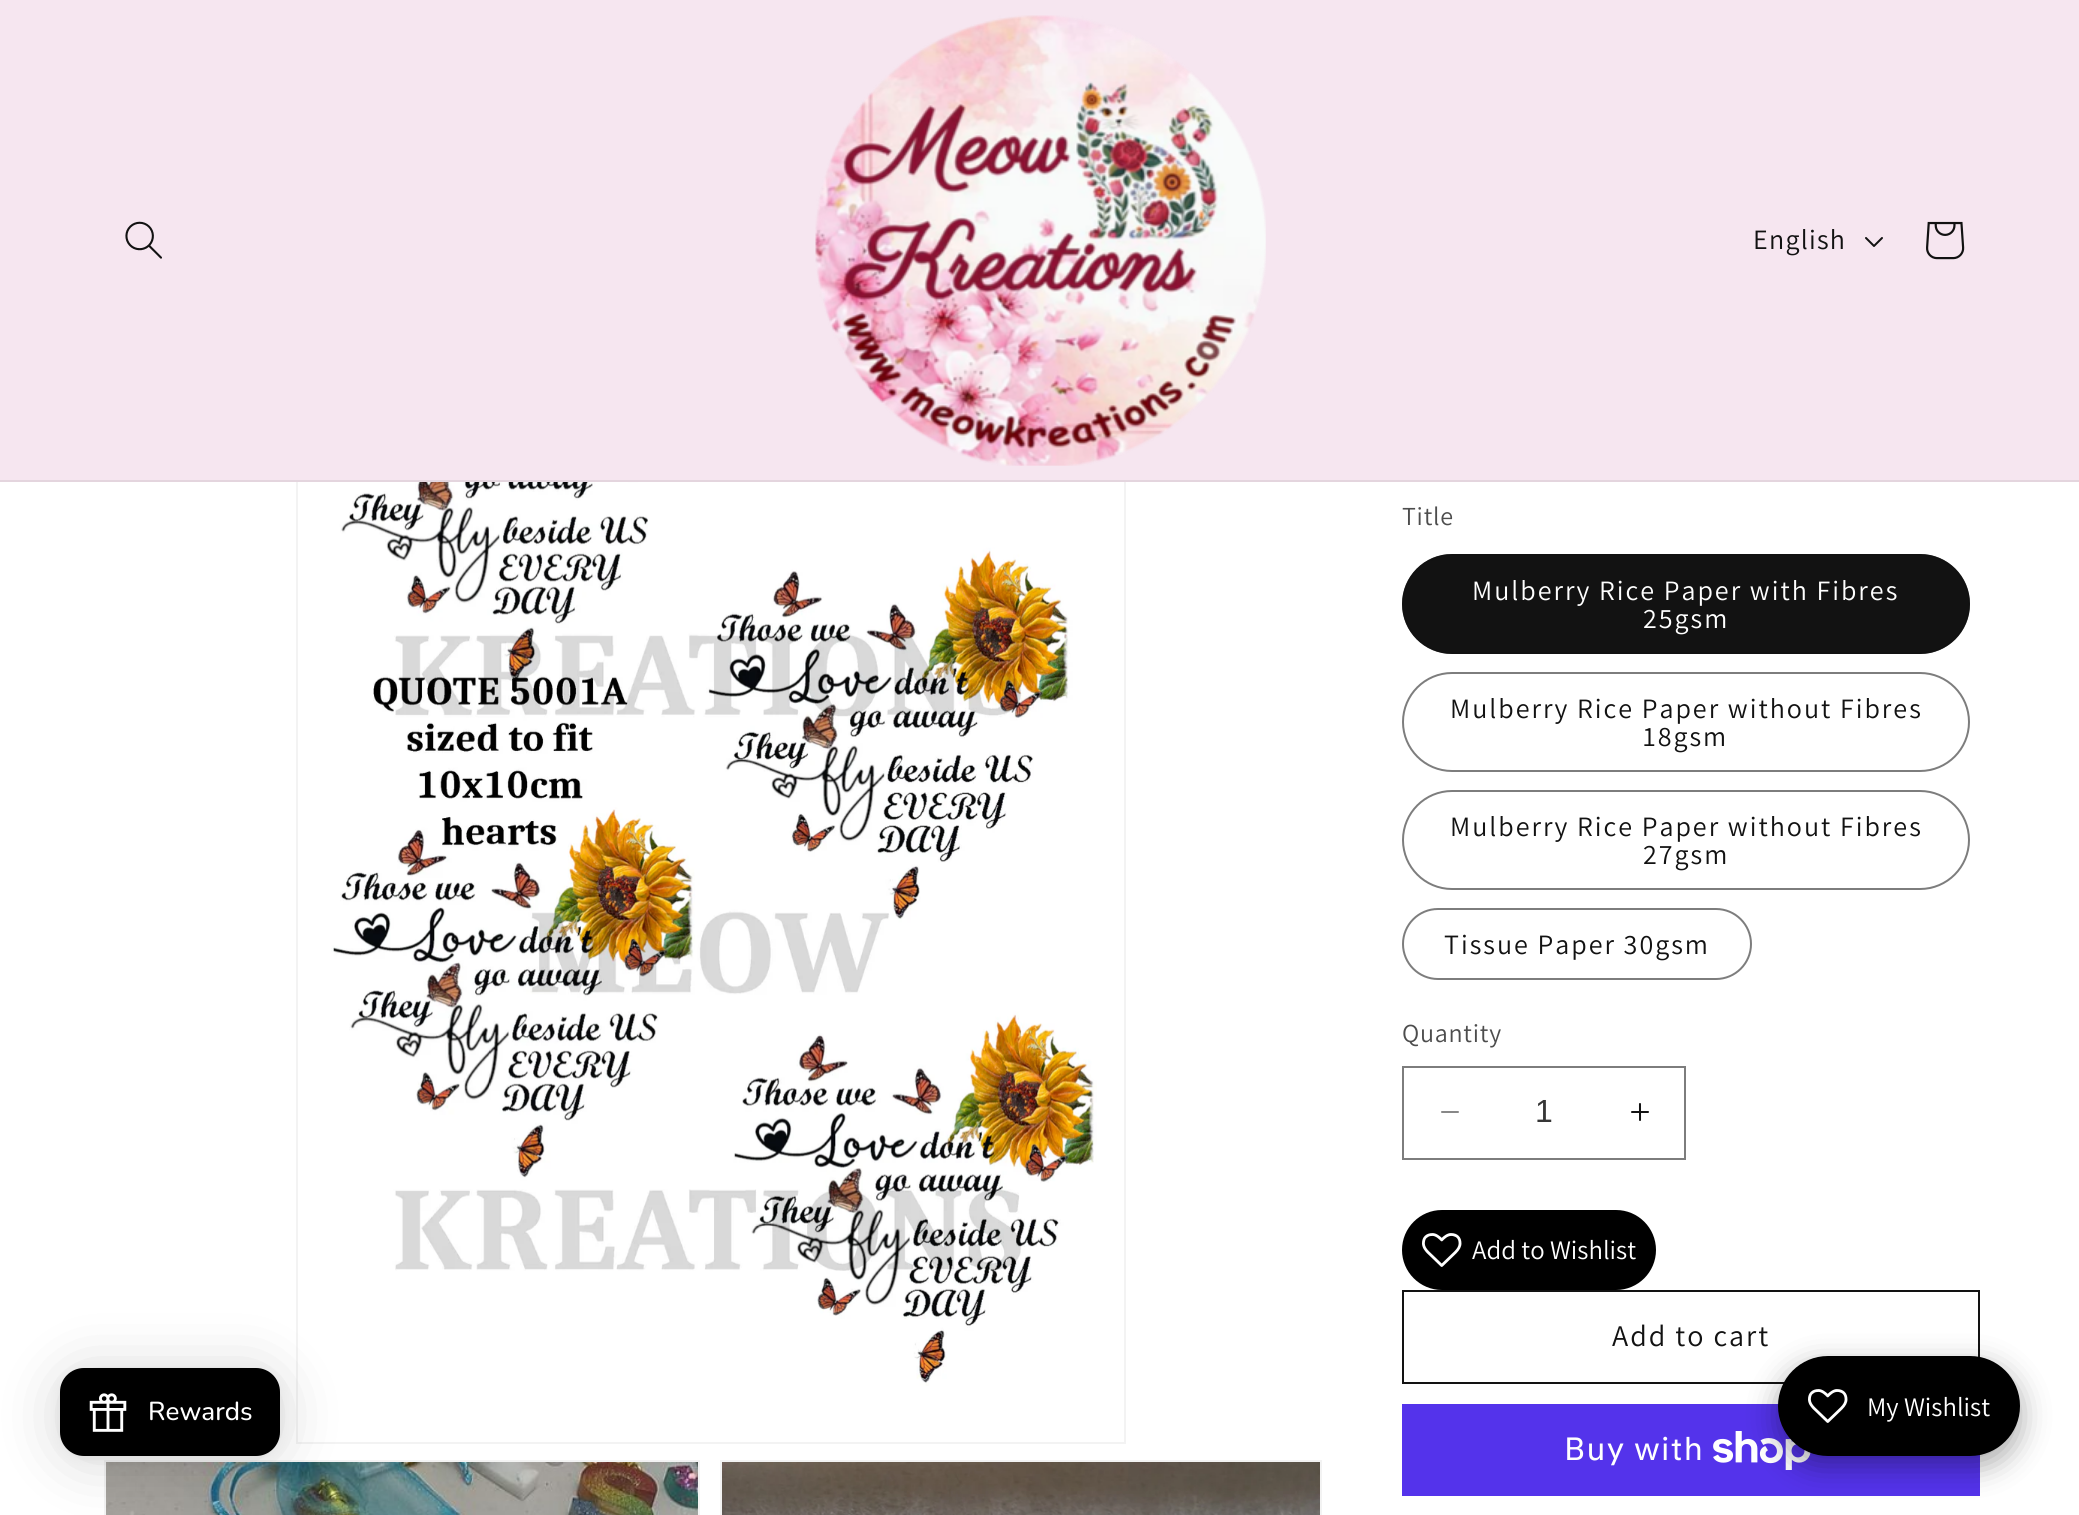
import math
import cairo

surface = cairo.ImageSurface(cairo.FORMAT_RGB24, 2079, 1515)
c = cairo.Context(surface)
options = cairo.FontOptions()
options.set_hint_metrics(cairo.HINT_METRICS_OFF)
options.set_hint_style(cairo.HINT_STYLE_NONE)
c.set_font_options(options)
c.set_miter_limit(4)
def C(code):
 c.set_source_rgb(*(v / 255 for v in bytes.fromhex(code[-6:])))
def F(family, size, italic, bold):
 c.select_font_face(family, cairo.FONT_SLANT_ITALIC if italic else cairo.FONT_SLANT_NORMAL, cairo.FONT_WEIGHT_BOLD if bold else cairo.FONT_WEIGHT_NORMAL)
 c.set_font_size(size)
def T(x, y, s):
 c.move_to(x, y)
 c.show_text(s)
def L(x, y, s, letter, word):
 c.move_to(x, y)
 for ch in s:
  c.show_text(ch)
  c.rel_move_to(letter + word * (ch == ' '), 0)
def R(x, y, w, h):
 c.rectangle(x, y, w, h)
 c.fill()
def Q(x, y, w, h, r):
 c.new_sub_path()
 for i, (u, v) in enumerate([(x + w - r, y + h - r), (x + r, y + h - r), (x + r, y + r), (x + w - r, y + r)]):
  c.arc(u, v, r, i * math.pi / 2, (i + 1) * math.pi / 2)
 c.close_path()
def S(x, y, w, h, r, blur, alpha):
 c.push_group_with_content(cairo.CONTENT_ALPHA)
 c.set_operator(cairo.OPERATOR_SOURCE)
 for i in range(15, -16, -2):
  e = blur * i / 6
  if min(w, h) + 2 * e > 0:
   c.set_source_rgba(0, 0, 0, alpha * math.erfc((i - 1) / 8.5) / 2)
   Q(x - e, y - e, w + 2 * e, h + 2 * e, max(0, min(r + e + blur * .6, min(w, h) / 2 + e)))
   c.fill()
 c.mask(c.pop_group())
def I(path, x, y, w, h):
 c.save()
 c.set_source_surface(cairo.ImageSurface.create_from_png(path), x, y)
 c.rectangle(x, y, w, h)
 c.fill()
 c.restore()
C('ffffff')
c.paint()
c.rectangle(297,271,828,1172)
C('f3f3f3')
c.stroke()
C('f6e6f0')
R(0,0,2079,480)
C('e4d5de')
R(0,480,2079,2)
I('1.png',125,221,37,38)
I('2.png',815,15,451,451)
F('Assistant',28,0,0)
C('121212')
L(1753,249,'English',1.25,0)
I('3.png',1865,237,18,10)
I('4.png',1926,221,39,39)
I('6.png',322,482,775,904)
c.rectangle(105,1461,594,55)
C('f3f3f3')
c.stroke()
I('7.png',106,1462,592,53)
C('000000')
S(60,1372,220,88,24,32,.16)
S(60,1370,220,88,24,6,.06)
C('000000')
Q(60,1368,220,88,24)
c.fill()
I('5.png',89,1393,38,39)
F('Nunito Medium',26,0,0)
C('ffffff')
T(148,1420,'Rewards')
c.rectangle(721,1461,600,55)
C('f3f3f3')
c.stroke()
I('8.png',722,1462,598,53)
F('Assistant',26,0,0)
C('4d4d4d')
L(1402,525,'Title',.75,0)
C('121212')
Q(1402,554,568,100,50)
c.fill()
Q(1403,555,566,98,49)
c.set_source_rgba(0.071,0.071,0.071,0.55)
c.stroke()
F('Assistant',28,0,0)
C('ffffff')
L(1472,600,'Mulberry Rice Paper with Fibres',2,0)
L(1643,628,'25gsm',2,0)
Q(1403,673,566,98,49)
C('7d7d7d')
c.stroke()
C('121212')
L(1450,718,'Mulberry Rice Paper without Fibres',2,0)
L(1643,746,'18gsm',2,0)
Q(1403,791,566,98,49)
C('7d7d7d')
c.stroke()
C('121212')
L(1450,836,'Mulberry Rice Paper without Fibres',2,0)
L(1643,864,'27gsm',2,0)
Q(1403,909,348,70,35)
C('7d7d7d')
c.stroke()
C('121212')
L(1444,954,'Tissue Paper 30gsm',2,0)
F('Assistant',26,0,0)
C('4d4d4d')
L(1402,1042,'Quantity',.75,0)
I('9.png',1441,1111,18,2)
I('10.png',1631,1103,18,18)
c.rectangle(1403,1067,282,92)
C('7d7d7d')
c.stroke()
F('Liberation Sans',32,0,0)
C('363636')
T(1535,1122,'1')
C('000000')
Q(1402,1210,254,80,40)
c.fill()
I('11.png',1422,1233,40,34)
F('Assistant',26.75,0,0)
C('ffffff')
T(1472,1259,'Add to Wishlist')
c.rectangle(1403,1291,576,92)
C('121212')
c.stroke()
F('Assistant',30,0,0)
L(1612,1346,'Add to cart',2,0)
C('5433eb')
R(1402,1404,578,92)
F('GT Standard',32,0,0)
C('ffffff')
L(1564,1460,'Buy with',1.25,0)
I('12.png',1713,1431,98,39)
C('000000')
S(1778,1366,242,100,50,15,.35)
C('000000')
Q(1778,1356,242,100,50)
c.fill()
I('11.png',1808,1389,40,34)
F('Assistant',26.75,0,0)
C('ffffff')
T(1867,1416,'My Wishlist')
surface.write_to_png('o.png')
